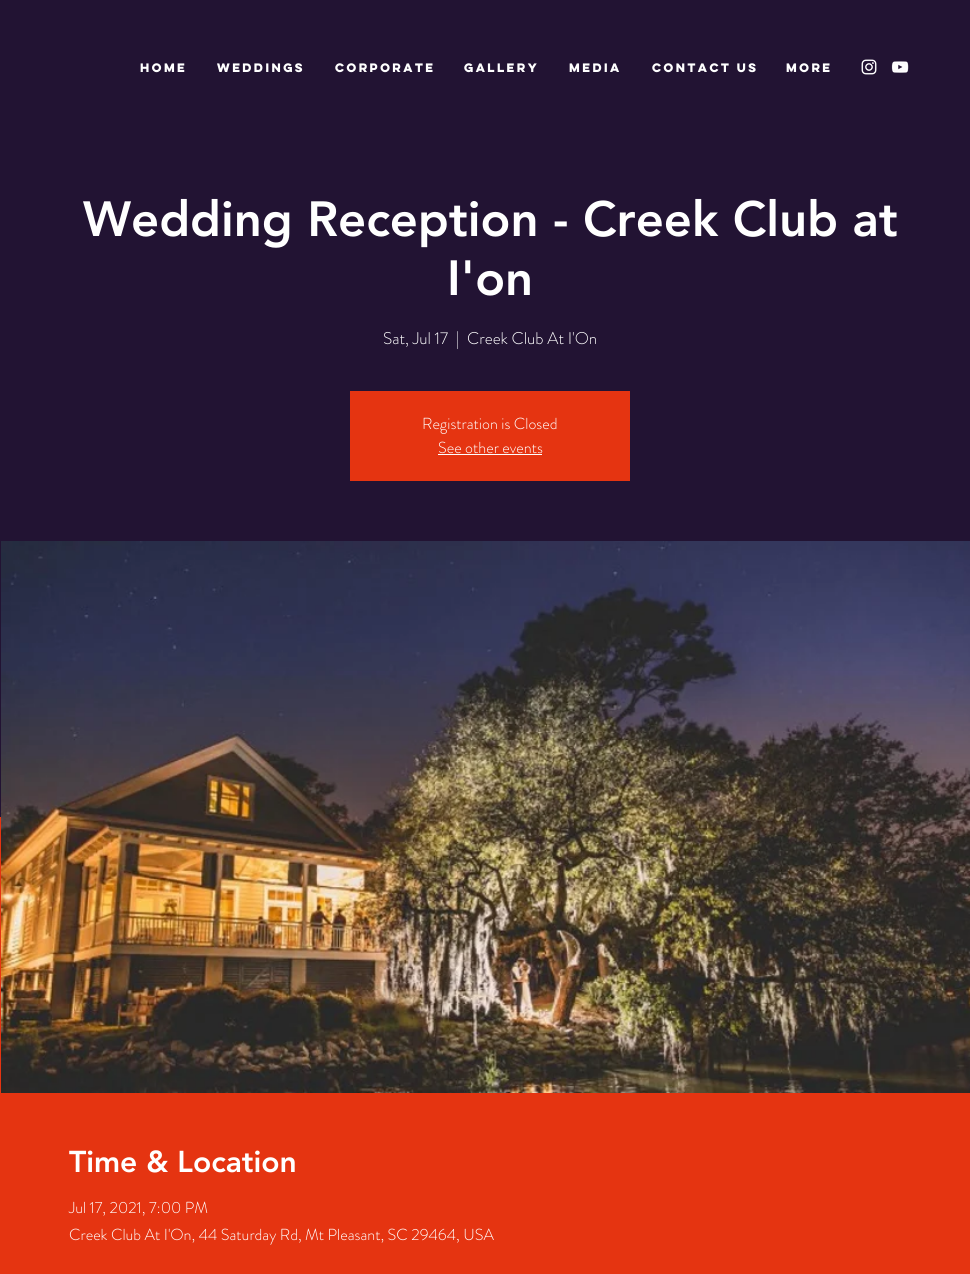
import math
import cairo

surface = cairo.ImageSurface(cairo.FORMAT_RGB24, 970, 1274)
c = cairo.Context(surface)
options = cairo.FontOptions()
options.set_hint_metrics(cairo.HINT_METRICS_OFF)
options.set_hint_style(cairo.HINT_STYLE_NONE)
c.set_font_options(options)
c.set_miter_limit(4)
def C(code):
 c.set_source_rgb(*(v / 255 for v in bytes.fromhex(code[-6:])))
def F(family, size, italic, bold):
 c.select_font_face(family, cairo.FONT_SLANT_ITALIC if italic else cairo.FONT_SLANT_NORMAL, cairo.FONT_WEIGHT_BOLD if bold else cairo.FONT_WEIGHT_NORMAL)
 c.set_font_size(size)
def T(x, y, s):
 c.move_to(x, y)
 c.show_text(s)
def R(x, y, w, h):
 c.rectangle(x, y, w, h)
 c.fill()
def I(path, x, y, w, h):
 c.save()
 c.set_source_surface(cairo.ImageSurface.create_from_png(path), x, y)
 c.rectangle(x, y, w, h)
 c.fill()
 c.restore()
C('221333')
c.paint()
F('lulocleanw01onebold',11,0,1)
C('ffffff')
T(140,72,'HOME')
T(217,72,'WEDDINGS')
T(335,72,'CORPORATE')
T(464,72,'GALLERY')
T(569,72,'MEDIA')
T(652,72,'CONTACT US')
T(786,72,'More')
I('1.png',861,59,16,16)
I('2.png',891,61,18,12)
F('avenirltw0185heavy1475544 Black',49,0,0)
T(83,236,'Wedding Reception - Creek Club at')
T(447,295,'I\'on')
F('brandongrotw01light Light',17,0,0)
T(383,344,'Sat, Jul 17')
T(456,344,'|')
T(467,344,'Creek Club At I\'On')
C('e53411')
R(350,391,280,90)
F('brandongrotw01light Light',16,0,0)
C('ffffff')
T(422,429,'Registration is Closed')
T(438,453,'See other events')
R(438,454,104,1)
C('e53411')
R(0,817,970,457)
I('3.png',1,541,969,552)
F('avenirltw0185heavy1475544 Black',30,0,0)
C('ffffff')
T(69,1172,'Time & Location')
F('brandongrotw01light Light',16,0,0)
T(69,1213,'Jul 17, 2021, 7:00 PM')
T(69,1240,'Creek Club At I\'On, 44 Saturday Rd, Mt Pleasant, SC 29464, USA')
surface.write_to_png('o.png')
